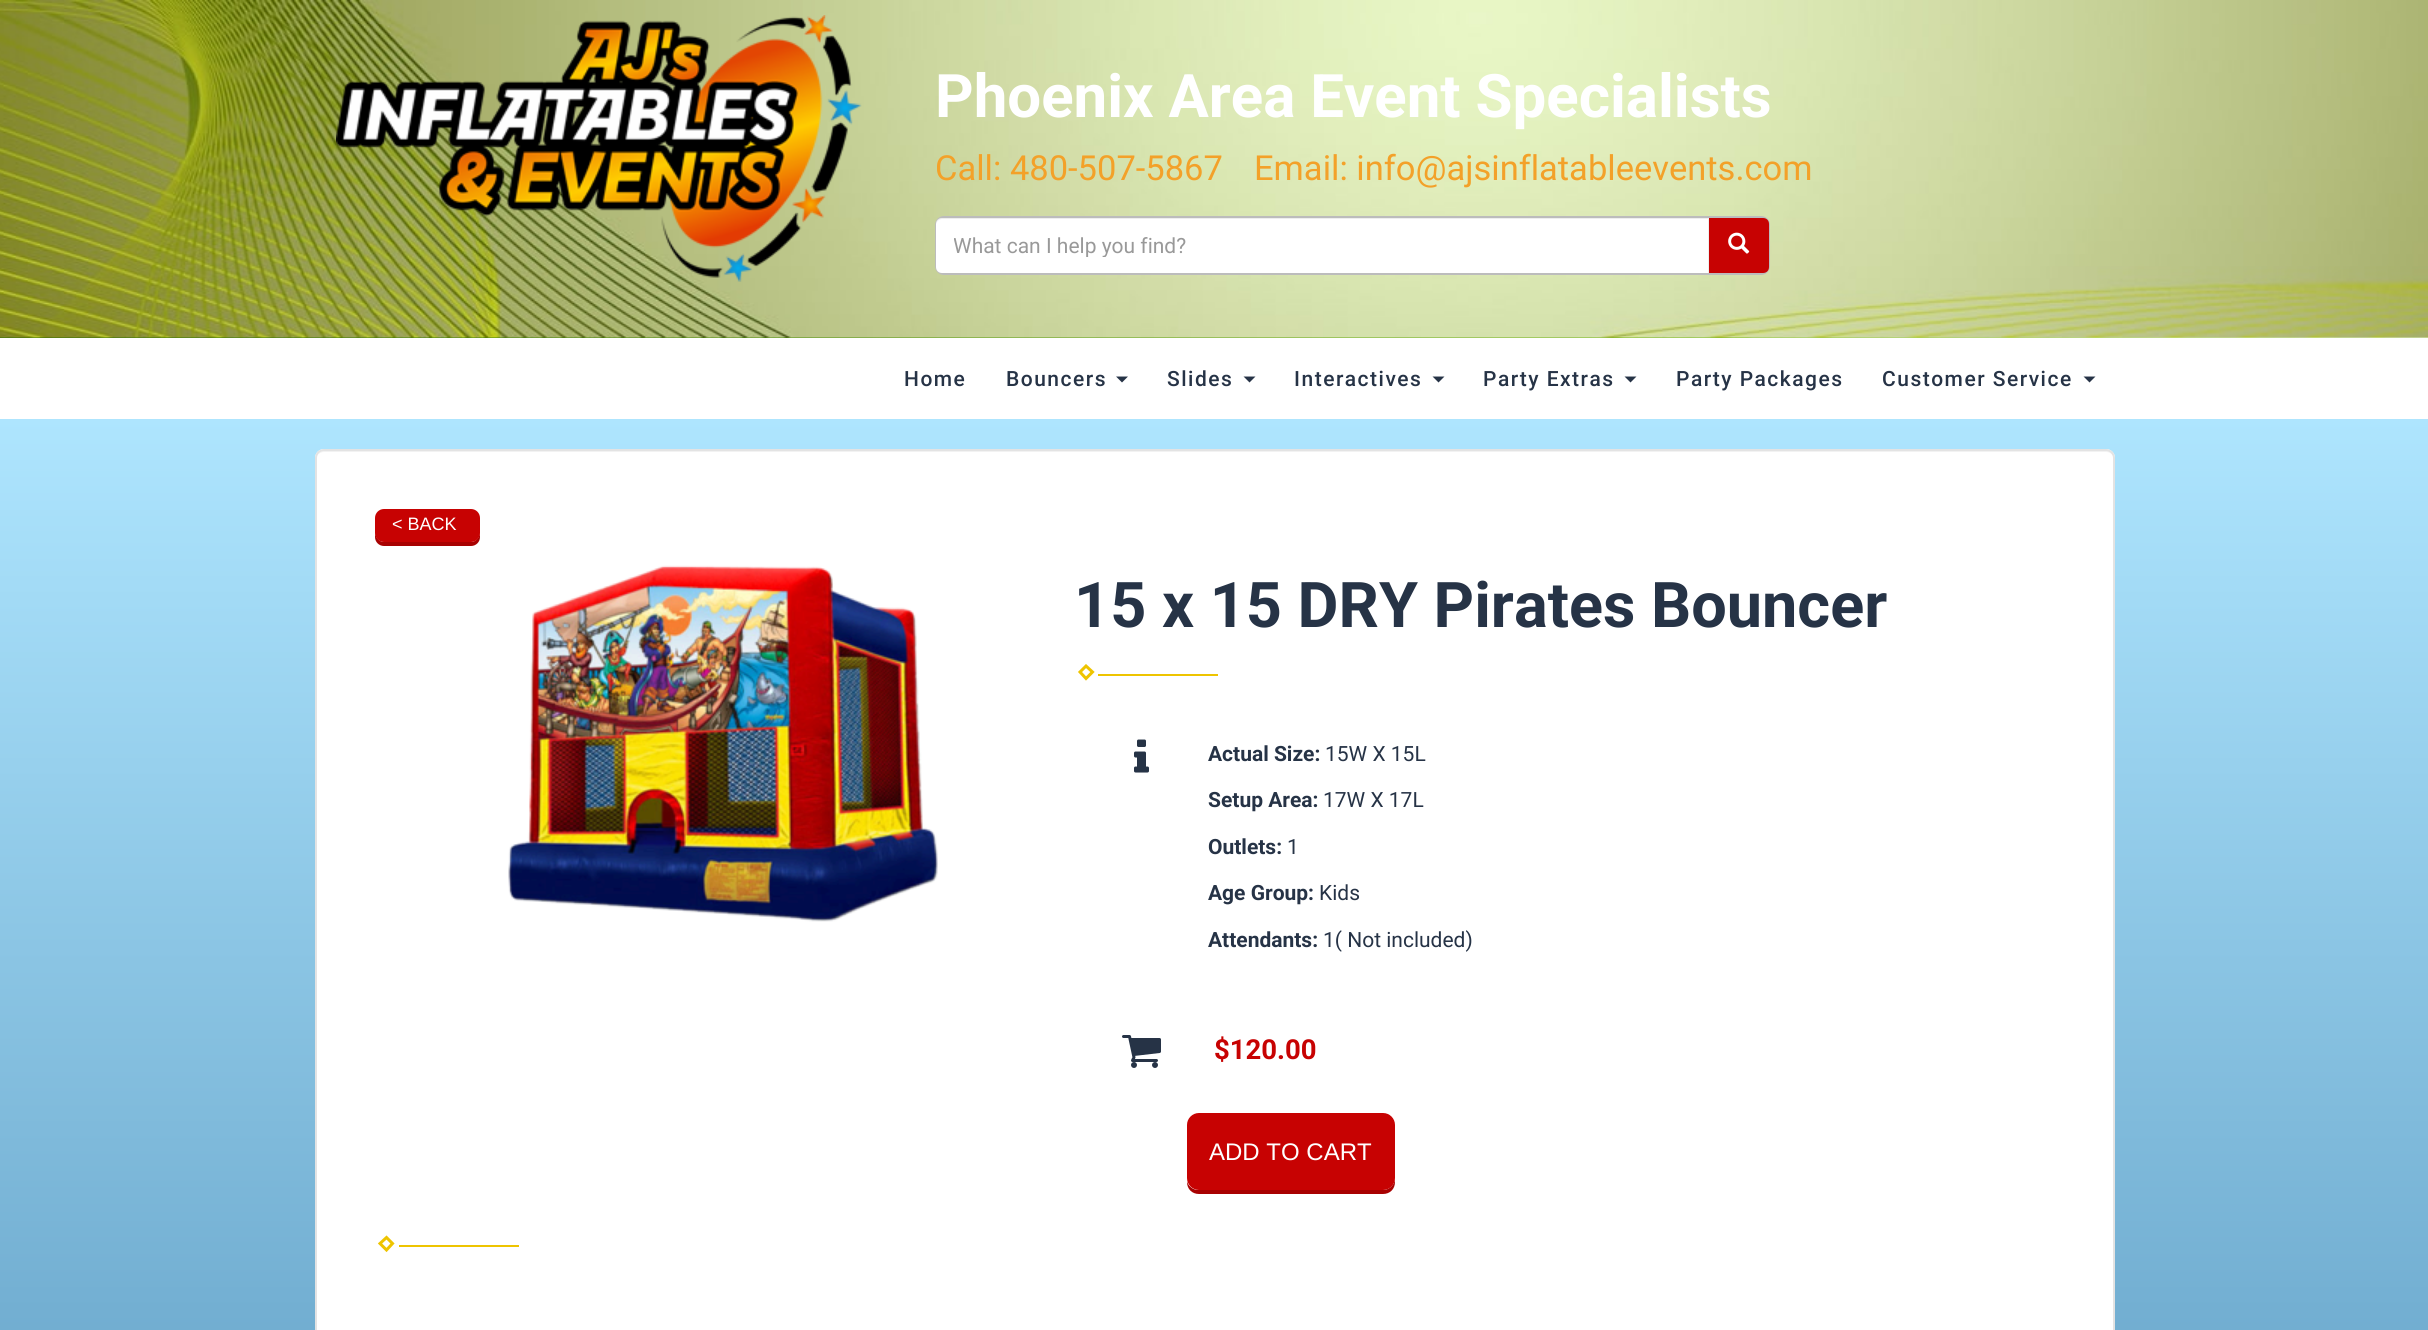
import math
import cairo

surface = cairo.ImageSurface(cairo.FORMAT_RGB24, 2428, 1330)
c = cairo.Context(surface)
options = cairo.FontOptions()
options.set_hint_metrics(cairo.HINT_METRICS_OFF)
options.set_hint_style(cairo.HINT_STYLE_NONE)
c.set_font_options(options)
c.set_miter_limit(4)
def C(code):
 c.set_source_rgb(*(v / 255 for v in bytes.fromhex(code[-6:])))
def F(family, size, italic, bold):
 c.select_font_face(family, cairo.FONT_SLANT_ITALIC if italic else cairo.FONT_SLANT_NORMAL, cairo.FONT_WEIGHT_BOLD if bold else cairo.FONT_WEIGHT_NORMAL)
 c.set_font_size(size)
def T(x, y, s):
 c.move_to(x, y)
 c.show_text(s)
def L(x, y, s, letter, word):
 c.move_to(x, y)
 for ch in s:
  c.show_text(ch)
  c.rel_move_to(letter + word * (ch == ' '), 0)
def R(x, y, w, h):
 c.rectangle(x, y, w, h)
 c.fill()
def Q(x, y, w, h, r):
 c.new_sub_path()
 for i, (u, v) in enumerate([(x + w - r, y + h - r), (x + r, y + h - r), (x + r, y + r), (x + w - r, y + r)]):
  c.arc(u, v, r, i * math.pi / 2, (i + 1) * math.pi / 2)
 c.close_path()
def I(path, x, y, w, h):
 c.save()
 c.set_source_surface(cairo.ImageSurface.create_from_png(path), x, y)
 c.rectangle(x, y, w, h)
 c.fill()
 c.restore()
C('ffffff')
c.paint()
I('1.png',0,337,2428,1)
I('2.png',0,0,2428,338)
I('3.png',336,15,526,267)
F('Roboto',60,0,1)
C('ffffff')
T(935,117,'Phoenix Area Event Specialists')
F('Roboto',34.5,0,0)
C('f3a129')
T(935,180,'Call: 480-507-5867')
T(1254,180,'Email: info@ajsinflatableevents.com')
Q(936,217,833,57,8)
C('bcbcbc')
c.stroke()
C('ffffff')
c.new_path()
c.move_to(942,218)
c.line_to(1709,218)
c.line_to(1709,273)
c.line_to(942,273)
c.curve_to(938.5,273,936,270.5,936,267)
c.line_to(936,224)
c.curve_to(936,220.5,938.5,218,942,218)
c.close_path()
c.fill()
c.set_source_rgba(0,0,0,0.07)
c.new_path()
c.move_to(942,219)
c.line_to(1708,219)
c.line_to(1708,273)
c.line_to(1709,273)
c.line_to(1709,218)
c.line_to(942,218)
c.curve_to(938,218,936,221,936,225)
c.curve_to(936,222,939,219,942,219)
c.close_path()
c.fill()
c.save()
c.rectangle(954,233,737,24)
c.clip()
F('Roboto',21,0,0)
C('999999')
T(953,253,'What can I help you find?')
c.restore()
C('c70202')
c.new_path()
c.move_to(1710,219)
c.line_to(1763,219)
c.curve_to(1766,219,1768,221,1768,224)
c.line_to(1768,267)
c.curve_to(1768,270,1766,272,1763,272)
c.line_to(1710,272)
c.close_path()
c.fill_preserve()
c.stroke()
I('4.png',1728,232,22,22)
F('Roboto Medium',21,0,0)
C('263346')
L(904,386,'Home',1.5,0)
L(1006,386,'Bouncers',1.5,0)
c.new_path()
c.move_to(1116,376.5)
c.line_to(1128,376.5)
c.line_to(1122,382.5)
c.close_path()
c.fill()
L(1167,386,'Slides',1.5,0)
c.new_path()
c.move_to(1243.5,376.5)
c.line_to(1255.5,376.5)
c.line_to(1249.5,382.5)
c.close_path()
c.fill()
L(1294,386,'Interactives',1.5,0)
c.new_path()
c.move_to(1432.5,376.5)
c.line_to(1444.5,376.5)
c.line_to(1438.5,382.5)
c.close_path()
c.fill()
L(1483,386,'Party Extras',1.5,0)
c.new_path()
c.move_to(1624.5,376.5)
c.line_to(1636.5,376.5)
c.line_to(1630.5,382.5)
c.close_path()
c.fill()
L(1676,386,'Party Packages',1.5,0)
L(1882,386,'Customer Service',1.5,0)
c.new_path()
c.move_to(2083.5,376.5)
c.line_to(2095.5,376.5)
c.line_to(2089.5,382.5)
c.close_path()
c.fill()
gradient = cairo.LinearGradient(1214,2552,1214,419)
gradient.add_color_stop_rgba(0,0.129,0.392,0.584,1)
gradient.add_color_stop_rgba(1,0.682,0.898,0.996,1)
c.set_source(gradient)
R(0,419,2428,911)
C('ffffff')
Q(315,449,1800,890,9)
c.fill()
C('f2f2f2')
c.new_path()
c.move_to(324,452)
c.line_to(2106,452)
c.curve_to(2110,452,2114,455,2114,459)
c.line_to(2114,458)
c.curve_to(2114,454,2110,450,2106,450)
c.line_to(325,450)
c.curve_to(322,450,319,452,318,455)
c.curve_to(319,453,322,452,324,452)
c.close_path()
c.fill()
Q(316,450,1798,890,8)
C('e3e3e3')
c.stroke()
C('a80101')
c.new_path()
c.move_to(375,532)
c.line_to(375,537)
c.curve_to(375,542,379,546,384,546)
c.line_to(471,546)
c.curve_to(476,546,480,542,480,537)
c.line_to(480,532)
c.curve_to(480,537,476,542,471,542)
c.line_to(384,542)
c.curve_to(379,542,375,537,375,532)
c.close_path()
c.fill()
C('c70202')
Q(375,509,105,33,9)
c.fill()
F('Liberation Sans',18,0,0)
C('ffffff')
T(392,530,'< BACK')
I('5.png',508,565,430,357)
F('Roboto',63,0,1)
C('263346')
T(1074,627,'15 x 15 DRY Pirates Bouncer')
c.new_path()
c.move_to(1086,666)
c.line_to(1092.5,672)
c.line_to(1086,678.5)
c.line_to(1080,672)
c.close_path()
C('eec400')
c.set_line_width(3)
c.stroke()
R(1098,674,120,2)
I('6.png',1134,739,15,34)
F('Roboto',21,0,1)
C('263346')
T(1208,761,'Actual Size:')
F('Roboto',21,0,0)
T(1325,761,'15W X 15L')
F('Roboto',21,0,1)
T(1208,807,'Setup Area:')
F('Roboto',21,0,0)
T(1323,807,'17W X 17L')
F('Roboto',21,0,1)
T(1208,854,'Outlets:')
F('Roboto',21,0,0)
T(1287,854,'1')
F('Roboto',21,0,1)
T(1208,900,'Age Group:')
F('Roboto',21,0,0)
T(1319,900,'Kids')
F('Roboto',21,0,1)
T(1208,947,'Attendants:')
F('Roboto',21,0,0)
T(1323,947,'1( Not included)')
I('7.png',1122,1035,39,33)
F('Roboto',27.5,0,1)
C('c70202')
T(1214,1059,'$120.00')
C('a80101')
c.new_path()
c.move_to(1187,1181)
c.line_to(1187,1182)
c.curve_to(1187,1189,1192,1194,1199,1194)
c.line_to(1383,1194)
c.curve_to(1390,1194,1395,1189,1395,1182)
c.line_to(1395,1178)
c.curve_to(1395,1184,1390,1190,1383,1190)
c.line_to(1198,1190)
c.curve_to(1193,1190,1188,1186,1187,1181)
c.close_path()
c.fill()
C('c70202')
Q(1187,1113,208,77,12)
c.fill()
F('Liberation Sans',24,0,0)
C('ffffff')
T(1209,1160,'ADD TO CART')
c.new_path()
c.move_to(386.5,1237.5)
c.line_to(392.5,1243.5)
c.line_to(386.5,1250)
c.line_to(380,1243.5)
c.close_path()
C('eec400')
c.stroke()
R(399,1245,120,2)
surface.write_to_png('o.png')
